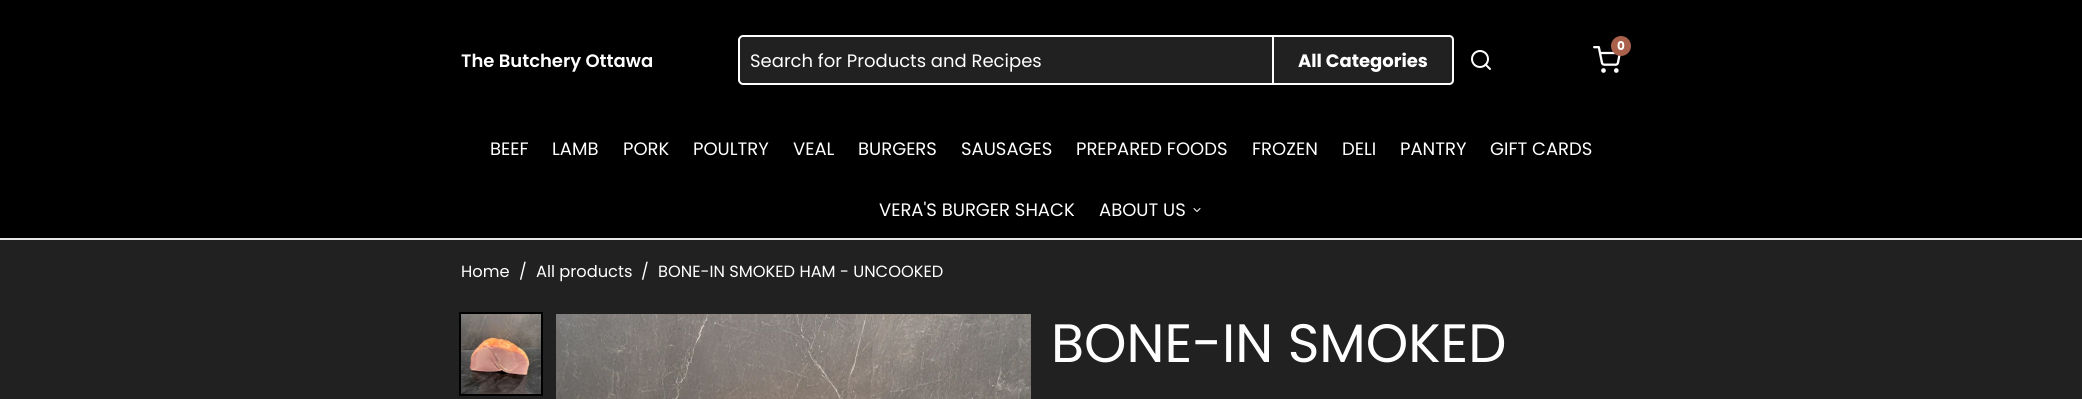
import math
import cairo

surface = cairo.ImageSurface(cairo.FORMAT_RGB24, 2082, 399)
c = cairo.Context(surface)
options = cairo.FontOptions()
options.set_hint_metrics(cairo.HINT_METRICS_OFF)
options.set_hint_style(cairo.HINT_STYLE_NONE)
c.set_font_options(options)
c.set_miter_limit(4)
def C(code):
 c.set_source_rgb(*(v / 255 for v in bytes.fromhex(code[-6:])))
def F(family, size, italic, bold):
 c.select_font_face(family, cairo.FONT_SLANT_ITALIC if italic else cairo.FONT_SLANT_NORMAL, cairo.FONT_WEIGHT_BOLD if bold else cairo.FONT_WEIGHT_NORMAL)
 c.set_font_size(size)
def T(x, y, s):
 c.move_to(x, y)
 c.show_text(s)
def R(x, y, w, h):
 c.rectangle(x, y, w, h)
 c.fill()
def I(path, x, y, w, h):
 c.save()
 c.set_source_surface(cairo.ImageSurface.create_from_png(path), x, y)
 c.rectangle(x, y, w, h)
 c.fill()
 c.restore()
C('212121')
c.paint()
C('000000')
R(0,0,2082,238)
C('e8e8e8')
R(0,238,2082,2)
I('1.png',1593,46,28,27)
C('aa614b')
c.arc(1621,46,10,0,2 * math.pi)
c.fill()
F('Poppins',12,0,1)
C('ffffff')
T(1617,50,'0')
F('Poppins SemiBold',18,0,0)
T(461,67,'The Butchery Ottawa')
C('212121')
c.new_path()
c.move_to(743,36)
c.line_to(1273,36)
c.line_to(1273,84)
c.line_to(743,84)
c.curve_to(741,84,739,82,739,80)
c.line_to(739,40)
c.curve_to(739,38,741,36,743,36)
c.close_path()
c.fill_preserve()
C('ffffff')
c.stroke()
F('Poppins',18,0,0)
T(750,67,'Search for Products and Recipes')
C('212121')
c.new_path()
c.move_to(1274,35)
c.line_to(1449,35)
c.curve_to(1452,35,1454,37,1454,40)
c.line_to(1454,80)
c.curve_to(1454,83,1452,85,1449,85)
c.line_to(1274,85)
c.close_path()
c.fill()
C('ffffff')
c.set_fill_rule(cairo.FILL_RULE_EVEN_ODD)
c.new_path()
c.move_to(1274,35)
c.line_to(1449,35)
c.curve_to(1452,35,1454,37,1454,40)
c.line_to(1454,80)
c.curve_to(1454,83,1452,85,1449,85)
c.line_to(1274,85)
c.close_path()
c.move_to(1274,37)
c.line_to(1449,37)
c.curve_to(1451,37,1452,38,1452,40)
c.line_to(1452,80)
c.curve_to(1452,82,1451,83,1449,83)
c.line_to(1274,83)
c.close_path()
c.fill()
F('Poppins',18,0,1)
T(1298,67,'All Categories')
c.new_path()
c.arc(1480,59,8,0,2 * math.pi)
c.stroke()
c.new_path()
c.move_to(1490,69)
c.line_to(1485.5,64.5)
c.set_line_cap(cairo.LINE_CAP_ROUND)
c.set_line_join(cairo.LINE_JOIN_ROUND)
c.stroke()
F('Poppins',18,0,0)
T(490,155,'BEEF')
T(552,155,'LAMB')
T(623,155,'PORK')
T(693,155,'POULTRY')
T(793,155,'VEAL')
T(858,155,'BURGERS')
T(961,155,'SAUSAGES')
T(1076,155,'PREPARED FOODS')
T(1252,155,'FROZEN')
T(1342,155,'DELI')
T(1400,155,'PANTRY')
T(1490,155,'GIFT CARDS')
T(879,216,'VERA\'S BURGER SHACK')
T(1099,216,'ABOUT US')
c.new_path()
c.move_to(1194,208.5)
c.line_to(1197,211.5)
c.line_to(1200,208.5)
c.set_line_width(1)
c.stroke()
F('Poppins',16.25,0,0)
T(461,277,'Home')
T(519,277,'/')
T(536,277,'All products')
T(641,277,'/')
T(658,277,'BONE-IN SMOKED HAM - UNCOOKED')
c.rectangle(460,313,82,82)
C('000000')
c.set_line_width(2)
c.set_line_cap(cairo.LINE_CAP_BUTT)
c.set_line_join(cairo.LINE_JOIN_MITER)
c.stroke()
I('2.png',461,314,80,80)
I('3.png',556,314,475,85)
F('Poppins',54,0,0)
C('ffffff')
T(1051,362,'BONE-IN SMOKED')
surface.write_to_png('o.png')
